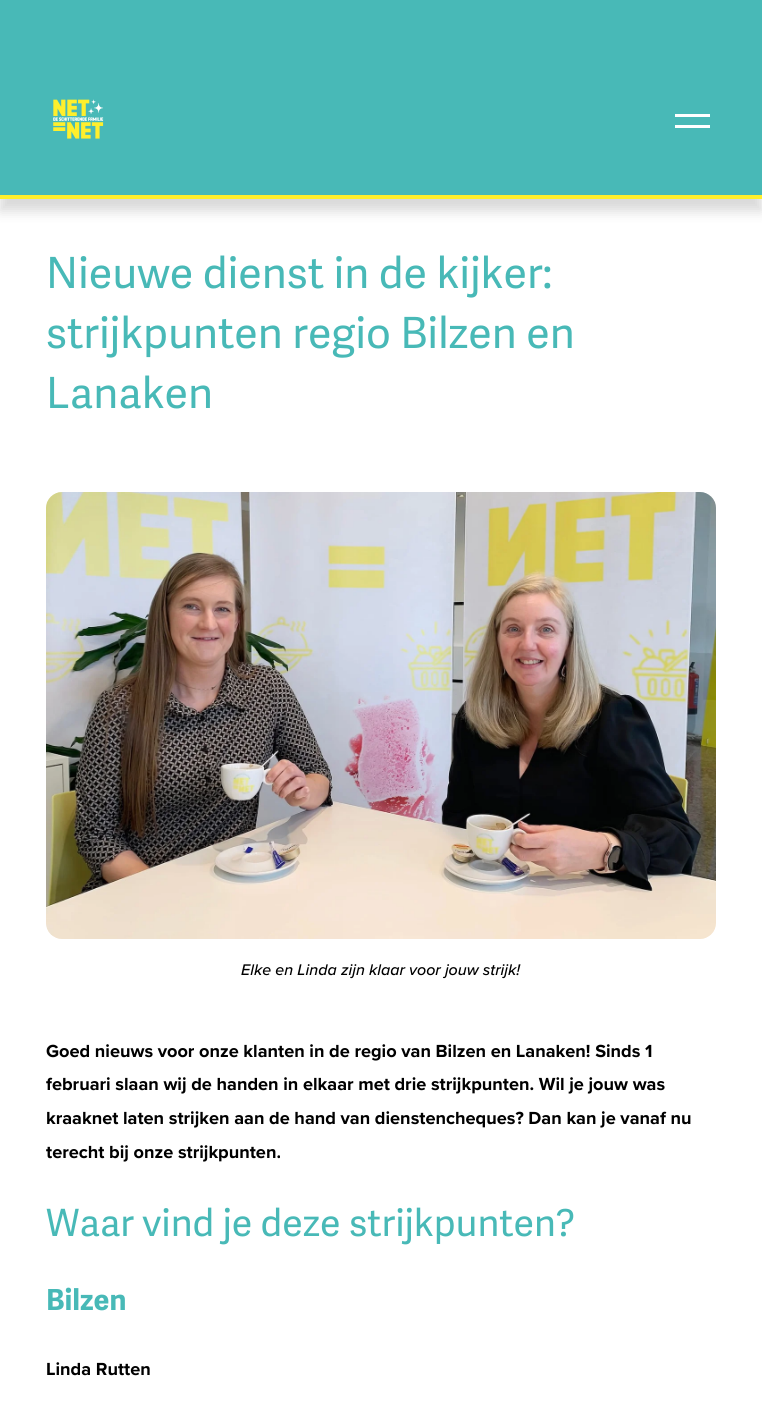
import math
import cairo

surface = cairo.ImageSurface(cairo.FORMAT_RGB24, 762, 1404)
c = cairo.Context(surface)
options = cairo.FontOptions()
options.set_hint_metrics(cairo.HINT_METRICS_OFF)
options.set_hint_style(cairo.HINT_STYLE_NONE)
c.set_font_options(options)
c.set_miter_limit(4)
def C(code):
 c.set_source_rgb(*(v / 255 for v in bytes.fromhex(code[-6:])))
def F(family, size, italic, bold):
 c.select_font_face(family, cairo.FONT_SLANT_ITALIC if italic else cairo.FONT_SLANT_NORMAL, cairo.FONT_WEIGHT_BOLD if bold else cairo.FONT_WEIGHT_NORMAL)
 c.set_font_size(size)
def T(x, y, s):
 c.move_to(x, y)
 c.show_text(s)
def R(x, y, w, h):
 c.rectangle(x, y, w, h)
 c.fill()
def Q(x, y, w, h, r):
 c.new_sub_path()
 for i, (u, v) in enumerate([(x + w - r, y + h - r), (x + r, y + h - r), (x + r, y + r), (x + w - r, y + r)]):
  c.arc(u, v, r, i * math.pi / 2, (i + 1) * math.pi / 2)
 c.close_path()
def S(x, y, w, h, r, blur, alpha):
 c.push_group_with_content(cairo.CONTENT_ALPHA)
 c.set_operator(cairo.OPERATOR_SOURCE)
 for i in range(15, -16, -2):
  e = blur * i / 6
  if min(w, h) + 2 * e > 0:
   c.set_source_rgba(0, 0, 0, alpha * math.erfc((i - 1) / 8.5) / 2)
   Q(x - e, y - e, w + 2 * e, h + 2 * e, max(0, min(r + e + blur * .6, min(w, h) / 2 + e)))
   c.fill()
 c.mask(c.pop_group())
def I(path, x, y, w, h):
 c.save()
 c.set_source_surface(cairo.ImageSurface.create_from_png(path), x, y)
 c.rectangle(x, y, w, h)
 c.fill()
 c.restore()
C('ffffff')
c.paint()
C('48b9b7')
R(0,0,762,195)
c.save()
c.rectangle(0,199,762,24)
c.clip()
C('d9d9d9')
S(0,54,762,157,0,6,1)
c.restore()
I('1.png',53,99,51,40)
C('ffffff')
R(675,114,35,3)
R(675,125,35,3)
C('ffef2c')
R(0,195,762,4)
F('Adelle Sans',43,0,0)
C('48b9b7')
T(46,288,'Nieuwe dienst in de kijker:')
T(46,348,'strijkpunten regio Bilzen en')
T(46,408,'Lanaken')
I('2.png',46,492,670,447)
F('Proxima Nova Medium',16,1,0)
C('000000')
T(241,975,'Elke en Linda zijn klaar voor jouw strijk!')
F('Proxima Nova',18.15,0,1)
T(46,1057,'Goed nieuws voor onze klanten in de regio van Bilzen en Lanaken! Sinds 1')
T(46,1090,'februari slaan wij de handen in elkaar met drie strijkpunten. Wil je jouw was')
T(46,1124,'kraaknet laten strijken aan de hand van dienstencheques? Dan kan je vanaf nu')
T(46,1158,'terecht bij onze strijkpunten.')
F('Adelle Sans',37.6,0,0)
C('48b9b7')
T(46,1236,'Waar vind je deze strijkpunten?')
F('Adelle Sans',29,0,1)
T(46,1310,'Bilzen')
F('Proxima Nova',18.15,0,1)
C('000000')
T(46,1375,'Linda Rutten')
surface.write_to_png('o.png')
